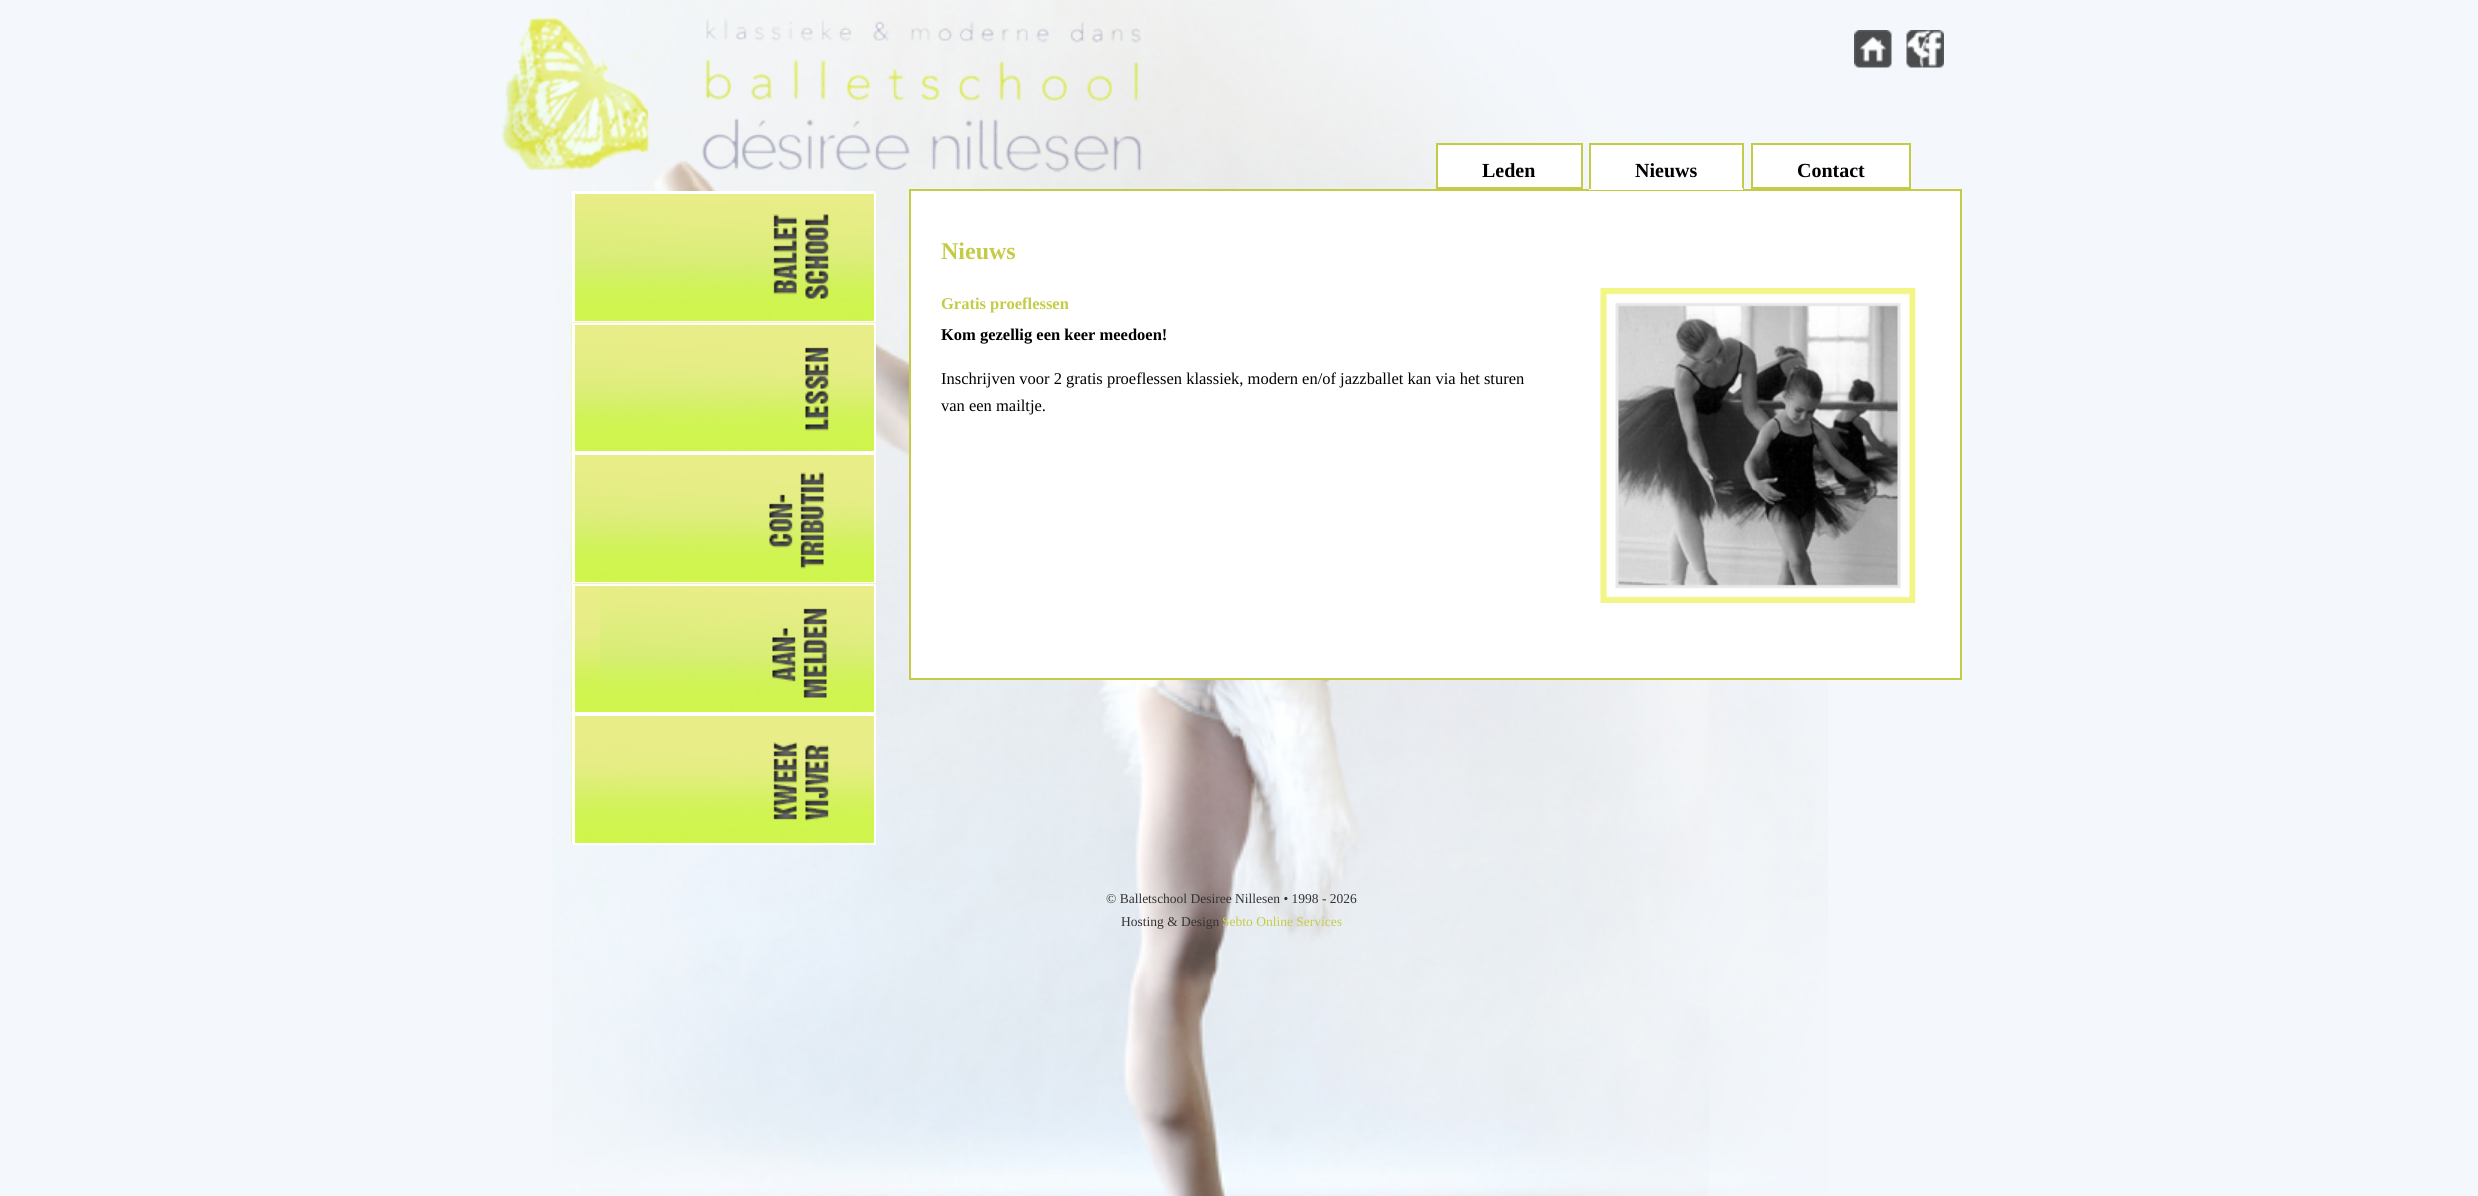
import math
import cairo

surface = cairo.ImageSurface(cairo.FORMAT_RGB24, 2478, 1196)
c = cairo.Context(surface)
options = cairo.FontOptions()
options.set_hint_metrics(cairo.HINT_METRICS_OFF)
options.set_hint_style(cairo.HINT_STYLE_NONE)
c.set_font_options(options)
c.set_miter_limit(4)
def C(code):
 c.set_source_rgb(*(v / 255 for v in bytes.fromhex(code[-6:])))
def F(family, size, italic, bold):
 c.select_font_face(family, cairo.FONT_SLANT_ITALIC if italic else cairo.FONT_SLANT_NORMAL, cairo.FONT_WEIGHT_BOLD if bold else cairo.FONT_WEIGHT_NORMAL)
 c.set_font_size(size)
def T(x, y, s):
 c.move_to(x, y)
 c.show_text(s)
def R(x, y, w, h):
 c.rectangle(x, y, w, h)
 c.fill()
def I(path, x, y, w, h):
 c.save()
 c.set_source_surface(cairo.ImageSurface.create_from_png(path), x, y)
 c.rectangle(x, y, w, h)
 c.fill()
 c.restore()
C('f4f8fc')
c.paint()
I('1.png',552,0,1276,1196)
I('2.png',501,17,641,156)
I('3.png',1854,30,38,38)
I('4.png',1906,30,38,38)
C('ffffff')
c.rectangle(1437,144,145,44)
c.fill_preserve()
C('c4cc47')
c.stroke()
F('Liberation Serif',20,0,1)
C('000000')
T(1482,177,'Leden')
C('ffffff')
R(1591,145,151,43)
C('000000')
T(1635,177,'Nieuws')
C('c4cc47')
R(1589,143,154,2)
R(1742,143,2,46)
C('ffffff')
c.rectangle(910,190,1051,489)
c.fill_preserve()
C('c4cc47')
c.stroke()
C('ffffff')
R(1589,188,154,2)
C('c4cc47')
R(1589,143,2,46)
C('ffffff')
c.rectangle(1752,144,158,44)
c.fill_preserve()
C('c4cc47')
c.stroke()
C('000000')
T(1797,177,'Contact')
c.rectangle(573,192,301,128)
C('ffffff')
c.stroke()
I('5.png',575,194,299,127)
c.rectangle(573,322,301,129)
c.stroke()
c.rectangle(574,193,301,129)
c.stroke()
I('6.png',571,322,1,130)
I('7.png',573,322,303,129)
c.rectangle(573,453,301,128)
c.stroke()
c.rectangle(574,324,301,128)
c.stroke()
I('8.png',571,453,1,129)
I('9.png',575,455,299,127)
c.rectangle(573,583,301,129)
c.stroke()
c.rectangle(574,454,301,129)
c.stroke()
I('10.png',571,583,1,130)
I('11.png',573,583,303,129)
c.rectangle(573,714,301,128)
c.stroke()
c.rectangle(574,585,301,128)
c.stroke()
I('12.png',571,714,1,129)
I('13.png',575,716,299,127)
c.rectangle(574,715,301,129)
c.stroke()
F('Liberation Serif',24,0,1)
C('c4cc47')
T(941,259,'Nieuws')
F('Liberation Serif',16.5,0,1)
T(941,309,'Gratis proeflessen')
I('14.png',1600,288,316,315)
C('000000')
T(941,340,'Kom gezellig een keer meedoen!')
F('Liberation Serif',16.5,0,0)
T(941,384,'Inschrijven voor 2 gratis proeflessen klassiek, modern en/of jazzballet kan via het sturen')
T(941,411,'van een mailtje.')
F('Liberation Serif',13.5,0,0)
C('333333')
T(1106,903,'© Balletschool Desiree Nillesen • 1998 - 2026')
T(1121,926,'Hosting & Design')
C('c4cc47')
T(1222,926,'Sebto Online Services')
surface.write_to_png('o.png')
